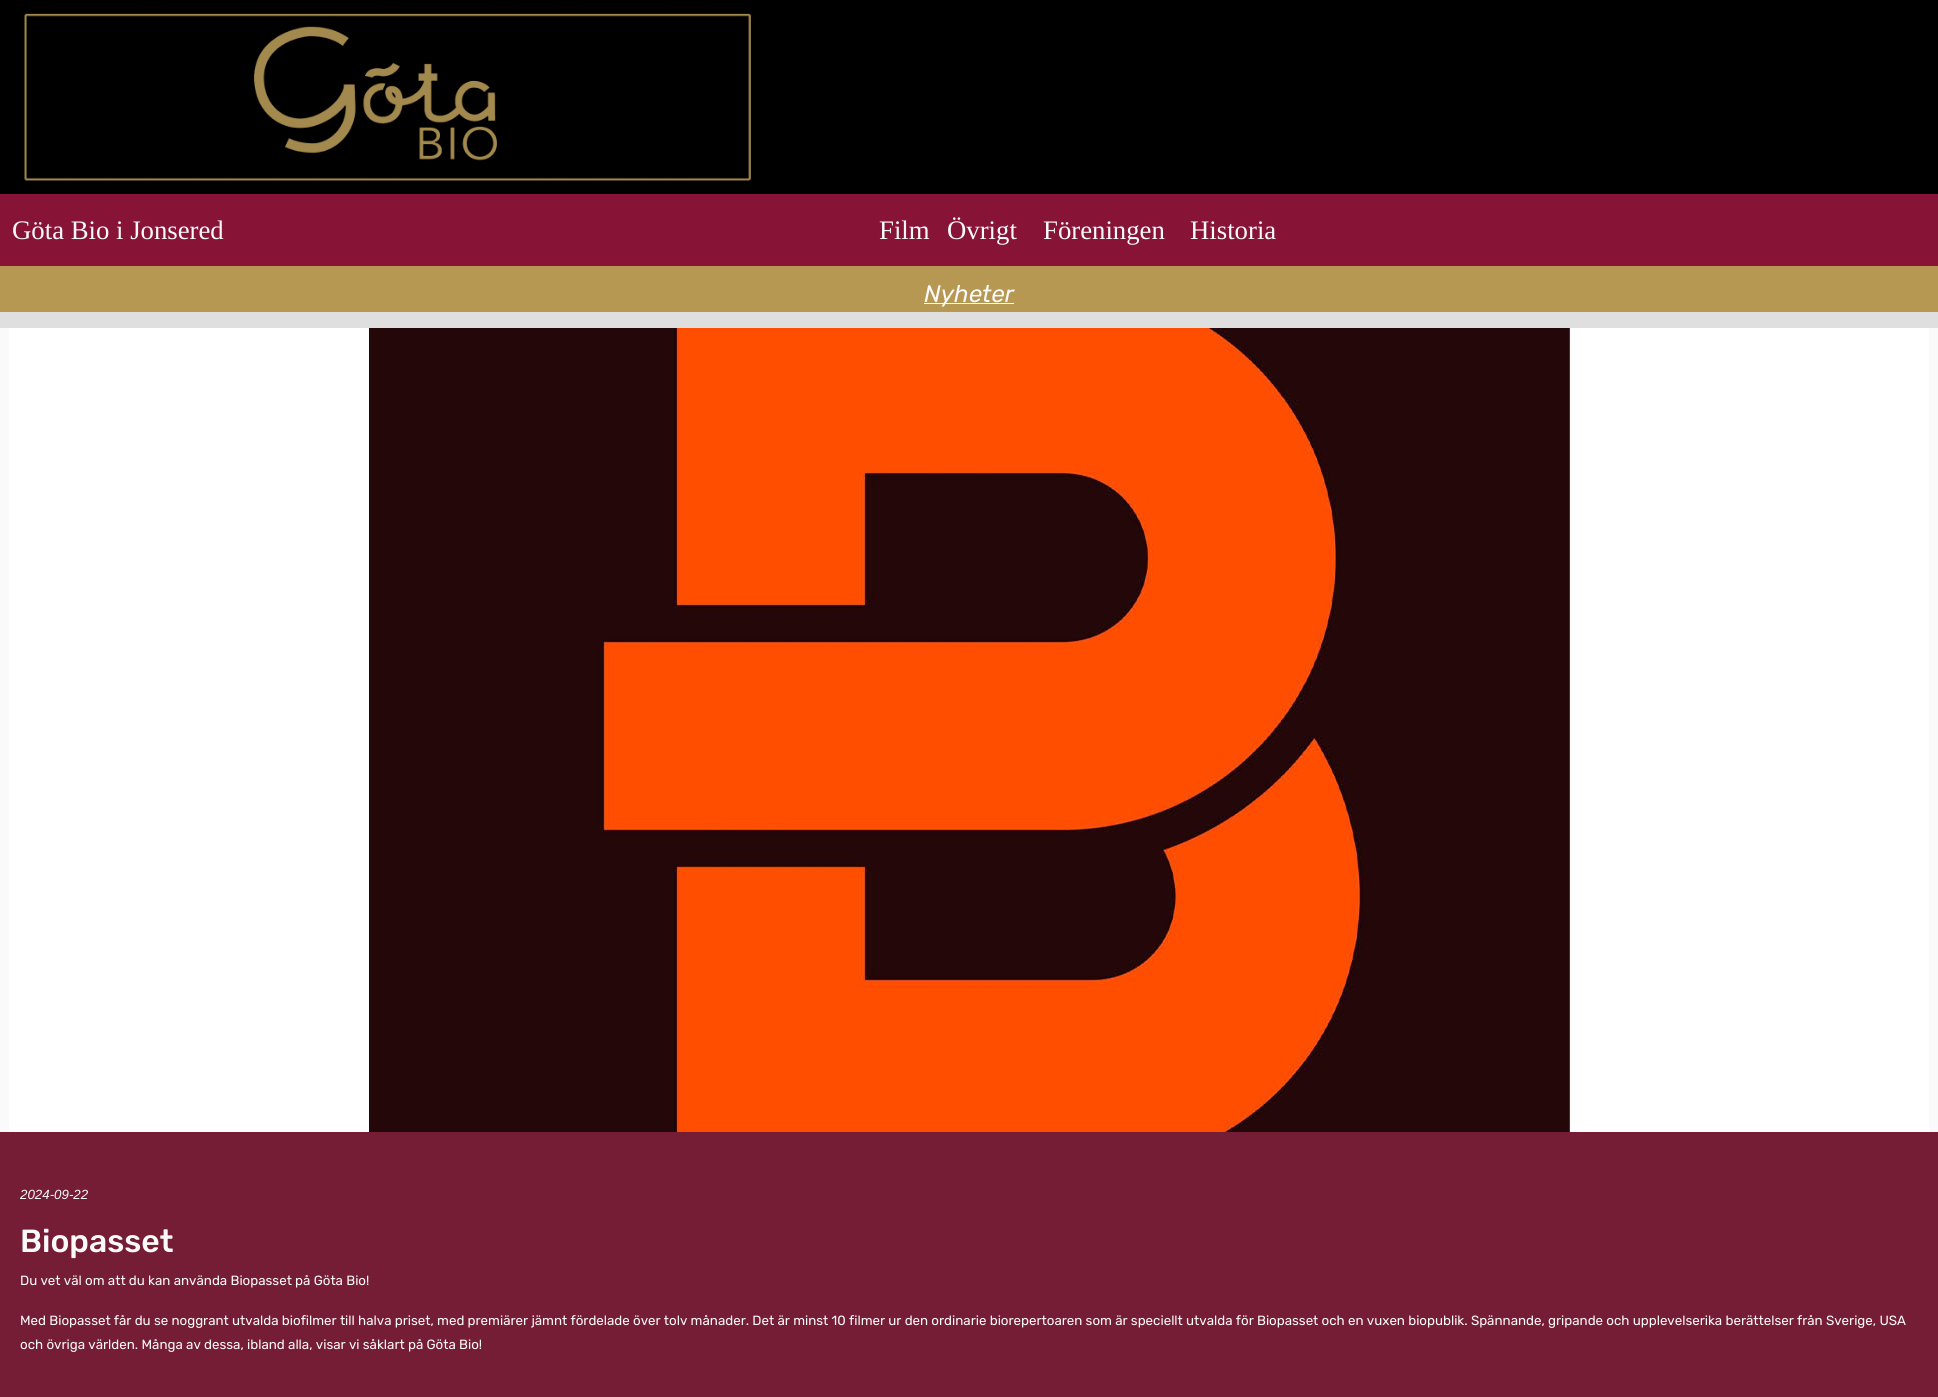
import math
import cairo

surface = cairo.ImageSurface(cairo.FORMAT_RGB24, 1938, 1397)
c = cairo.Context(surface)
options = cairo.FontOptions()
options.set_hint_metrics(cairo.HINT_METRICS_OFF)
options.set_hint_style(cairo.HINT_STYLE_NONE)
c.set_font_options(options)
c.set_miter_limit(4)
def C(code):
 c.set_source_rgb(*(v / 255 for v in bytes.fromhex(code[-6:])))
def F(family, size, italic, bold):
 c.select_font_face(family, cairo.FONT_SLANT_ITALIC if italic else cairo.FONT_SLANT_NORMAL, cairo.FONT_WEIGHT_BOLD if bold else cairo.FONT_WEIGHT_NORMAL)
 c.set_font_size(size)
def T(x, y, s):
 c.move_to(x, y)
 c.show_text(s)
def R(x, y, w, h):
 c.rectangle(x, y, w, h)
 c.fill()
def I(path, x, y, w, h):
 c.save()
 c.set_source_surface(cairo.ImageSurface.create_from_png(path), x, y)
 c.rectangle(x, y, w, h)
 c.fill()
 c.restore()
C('000000')
c.paint()
I('1.png',24,13,727,168)
C('871437')
R(0,194,1938,72)
F('Liberation Serif',26.75,0,0)
C('fafafa')
T(12,239,'Göta Bio i Jonsered')
T(879,239,'Film')
T(947,239,'Övrigt')
T(1043,239,'Föreningen')
T(1190,239,'Historia')
C('dfdfdf')
R(0,312,1938,16)
C('b69852')
R(0,266,1938,46)
C('fafafa')
R(924,303,90,1)
F('Rubik',24,1,0)
T(924,302,'Nyheter')
R(0,328,1938,804)
I('2.png',9,328,1920,804)
C('751d34')
R(0,1132,1938,265)
F('Liberation Sans',13.33,1,0)
C('fafafa')
T(20,1199,'2024-09-22')
F('Rubik Medium',32,0,0)
T(20,1252,'Biopasset')
F('Rubik',13.33,0,0)
T(20,1285,'Du vet väl om att du kan använda Biopasset på Göta Bio!')
T(20,1325,'Med Biopasset får du se noggrant utvalda biofilmer till halva priset, med premiärer jämnt fördelade över tolv månader. Det är minst 10 filmer ur den ordinarie biorepertoaren som är speciellt utvalda för Biopasset och en vuxen biopublik. Spännande, gripande och upplevelserika berättelser från Sverige, USA')
T(20,1349,'och övriga världen. Många av dessa, ibland alla, visar vi såklart på Göta Bio!')
surface.write_to_png('o.png')
